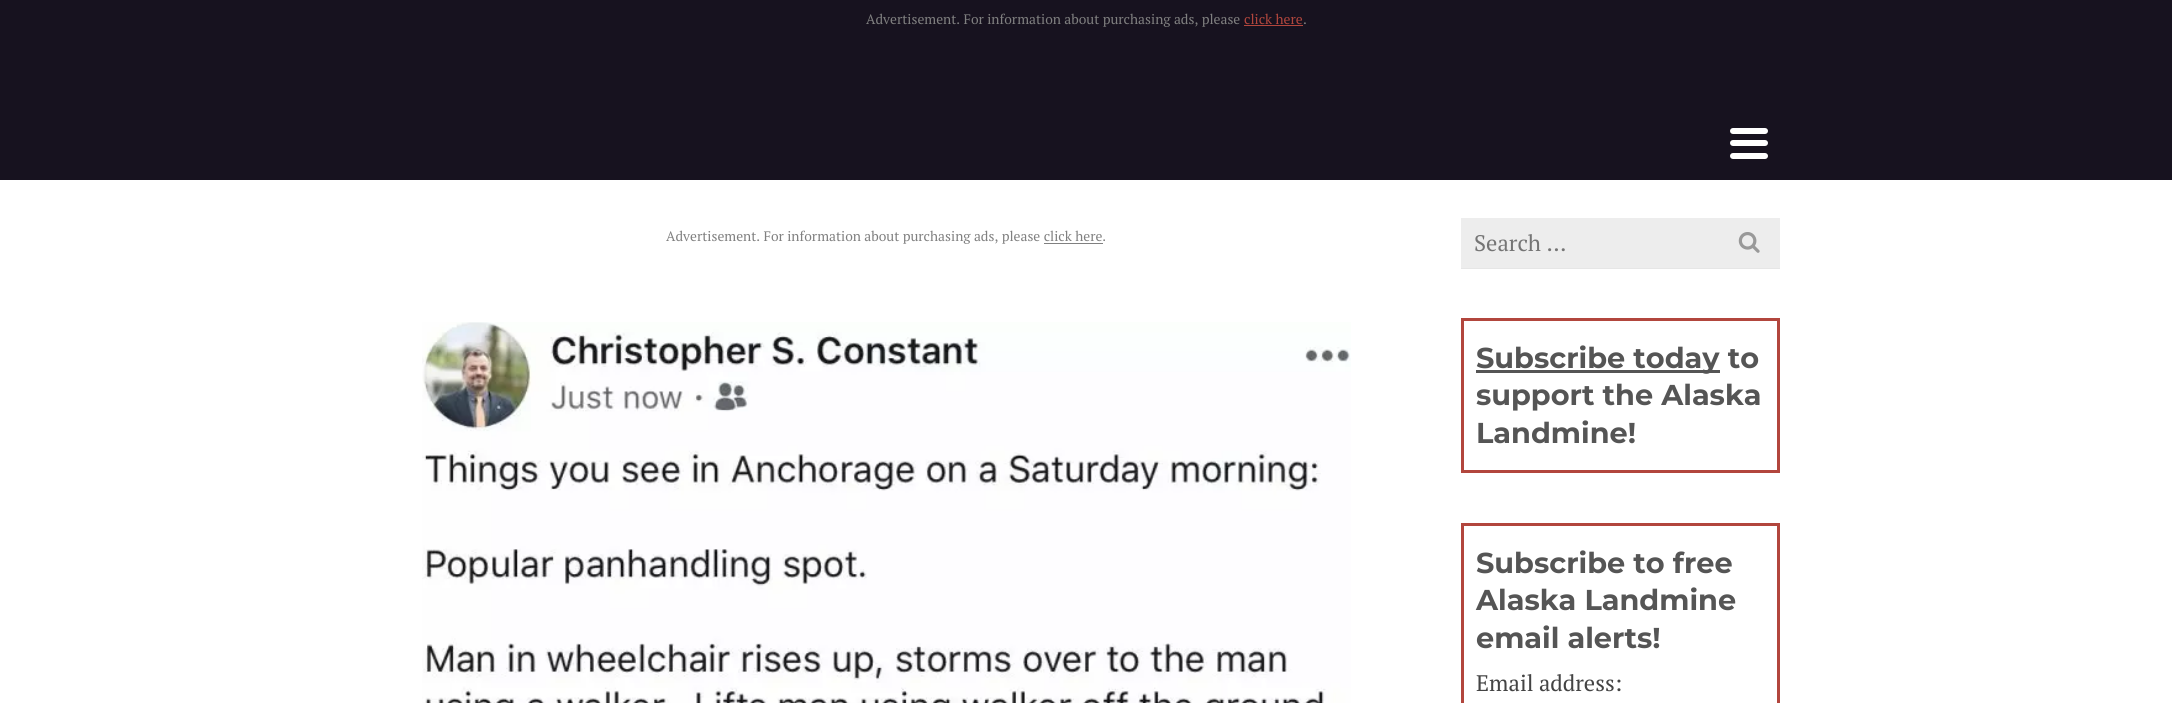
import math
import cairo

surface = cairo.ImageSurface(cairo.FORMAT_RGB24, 2172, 703)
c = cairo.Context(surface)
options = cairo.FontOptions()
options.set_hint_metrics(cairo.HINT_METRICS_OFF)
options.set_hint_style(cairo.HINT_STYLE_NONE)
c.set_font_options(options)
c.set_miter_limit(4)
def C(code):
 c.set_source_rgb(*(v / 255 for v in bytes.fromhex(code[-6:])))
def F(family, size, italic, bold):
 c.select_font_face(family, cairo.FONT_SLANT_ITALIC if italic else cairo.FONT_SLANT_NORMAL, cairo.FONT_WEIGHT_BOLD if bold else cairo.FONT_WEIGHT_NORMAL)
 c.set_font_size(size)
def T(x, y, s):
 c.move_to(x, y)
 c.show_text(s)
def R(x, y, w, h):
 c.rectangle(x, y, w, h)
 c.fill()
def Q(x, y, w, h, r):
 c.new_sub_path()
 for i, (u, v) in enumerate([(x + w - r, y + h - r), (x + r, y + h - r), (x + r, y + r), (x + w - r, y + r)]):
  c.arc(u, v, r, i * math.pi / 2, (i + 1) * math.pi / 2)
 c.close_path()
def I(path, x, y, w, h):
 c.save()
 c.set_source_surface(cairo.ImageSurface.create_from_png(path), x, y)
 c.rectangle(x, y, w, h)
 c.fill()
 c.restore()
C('17121f')
c.paint()
F('PT Serif',13.75,0,0)
C('808080')
T(866,24,'Advertisement. For information about purchasing ads, please')
C('b2463d')
T(1244,24,'click here')
R(1244,25,59,1)
C('808080')
T(1303,24,'.')
C('ffffff')
Q(1730,128,38,6,3)
c.fill()
Q(1730,140,38,6,3)
c.fill()
Q(1730,153,38,6,3)
c.fill()
R(0,180,2172,523)
C('808080')
T(666,241,'Advertisement. For information about purchasing ads, please click here.')
R(1044,243,59,1)
I('1.png',422,322,929,381)
C('e6e6e6')
c.new_path()
c.move_to(1461,219)
c.line_to(1461,269)
c.line_to(1780,269)
c.line_to(1780,268)
c.line_to(1461,268)
c.close_path()
c.fill()
C('ededed')
R(1461,218,319,50)
F('PT Serif',22.5,0,0)
C('757575')
T(1474,251,'Search …')
I('2.png',1738,232,22,21)
c.rectangle(1462.5,319.5,316,152)
C('b2463d')
c.set_line_width(3)
c.stroke()
C('555555')
R(1476,370,244,3)
F('Montserrat',28.75,0,1)
T(1476,368,'Subscribe today to')
T(1476,405,'support the Alaska')
T(1476,443,'Landmine!')
c.rectangle(1462.5,524.5,316,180)
C('b2463d')
c.stroke()
C('555555')
T(1476,573,'Subscribe to free')
T(1476,610,'Alaska Landmine')
T(1476,648,'email alerts!')
F('PT Serif',22.5,0,0)
C('444444')
T(1476,691,'Email address:')
surface.write_to_png('o.png')
